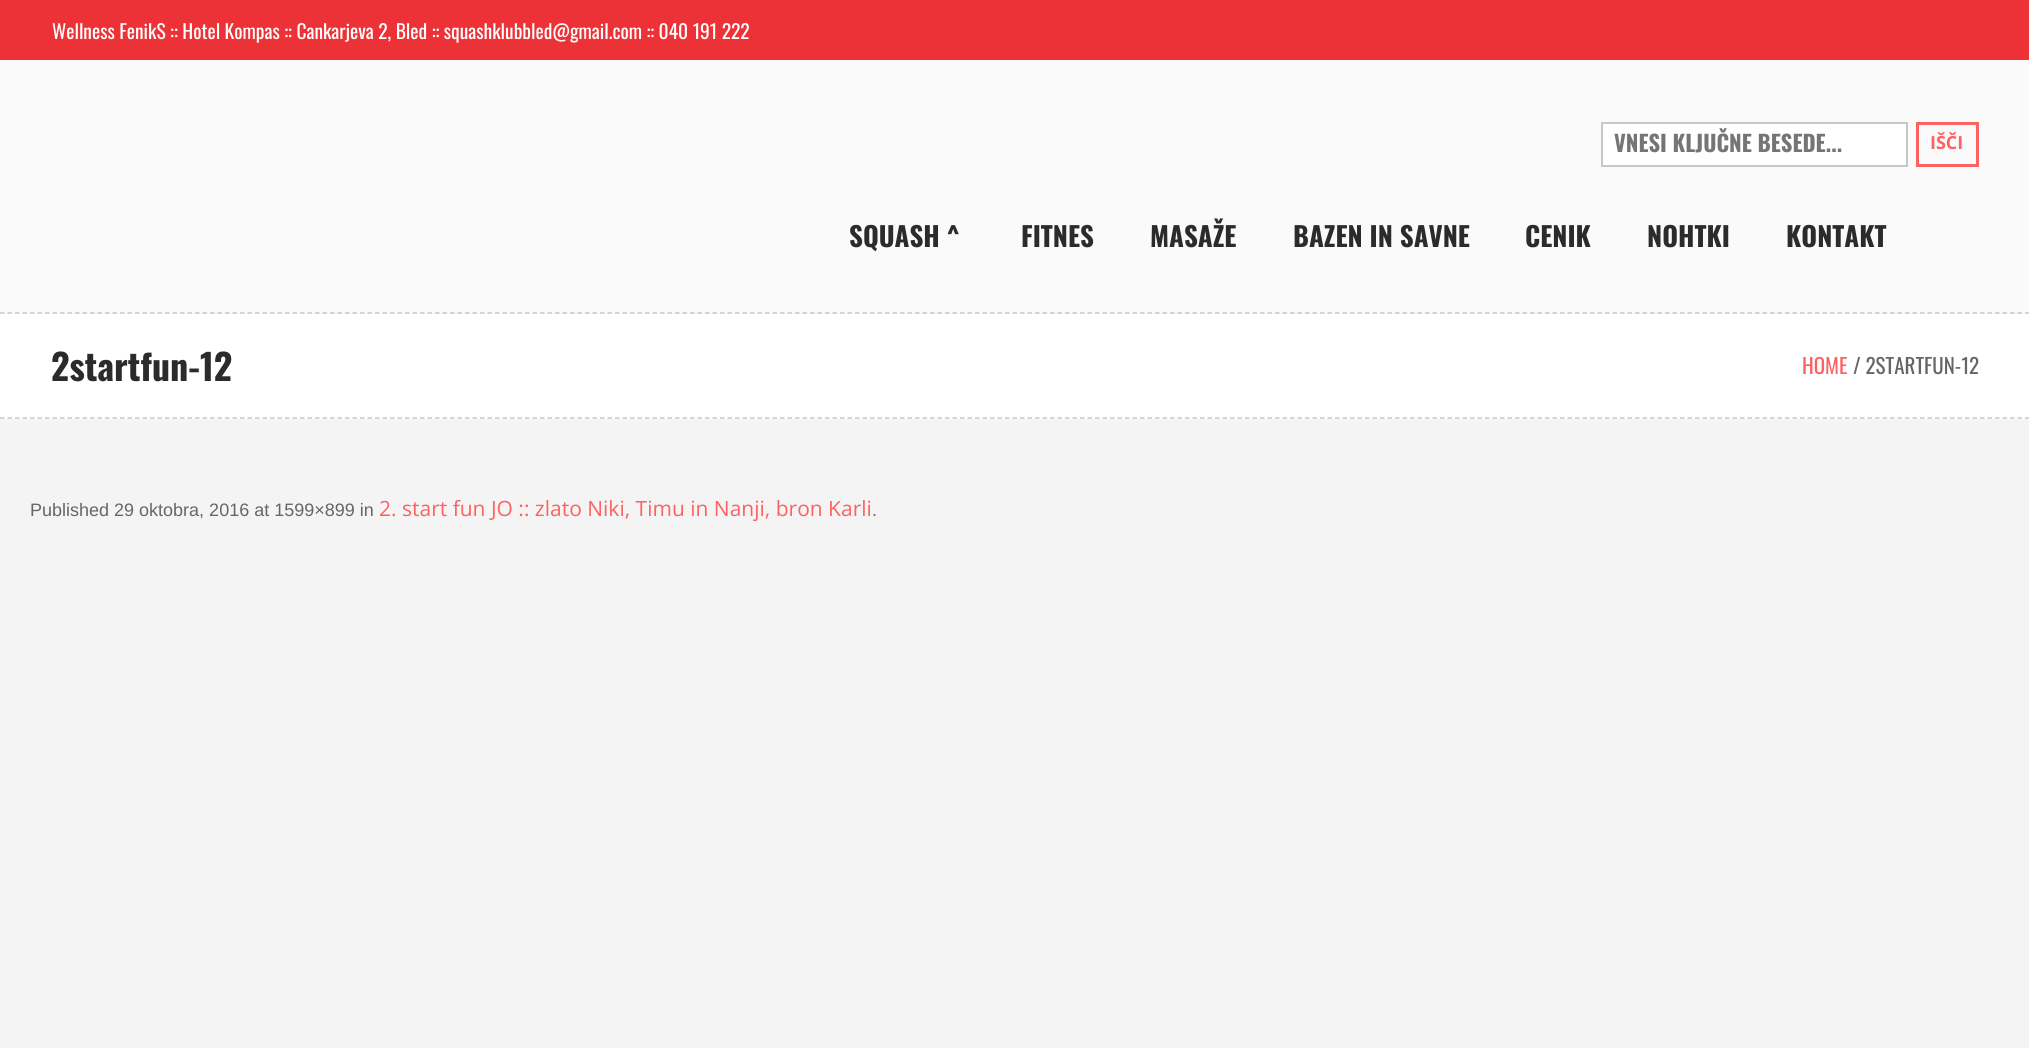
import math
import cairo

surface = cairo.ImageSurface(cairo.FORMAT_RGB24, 2029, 1048)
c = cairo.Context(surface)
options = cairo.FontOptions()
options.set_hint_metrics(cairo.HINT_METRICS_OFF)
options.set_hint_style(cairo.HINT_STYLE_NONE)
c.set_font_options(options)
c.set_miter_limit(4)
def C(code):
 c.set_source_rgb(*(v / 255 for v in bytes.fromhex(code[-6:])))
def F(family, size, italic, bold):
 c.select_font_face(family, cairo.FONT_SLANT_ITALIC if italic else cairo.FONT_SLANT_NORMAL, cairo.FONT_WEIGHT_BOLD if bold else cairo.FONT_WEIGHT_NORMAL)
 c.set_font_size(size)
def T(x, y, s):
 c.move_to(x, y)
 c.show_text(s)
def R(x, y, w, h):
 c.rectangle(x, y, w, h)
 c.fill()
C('f4f4f4')
c.paint()
C('ed3237')
R(0,0,2029,60)
F('Oswald',19.5,0,0)
C('ffffff')
T(52,39,'Wellness FenikS :: Hotel Kompas :: Cankarjeva 2, Bled :: squashklubbled@gmail.com :: 040 191 222')
C('fafafa')
R(0,60,2029,254)
c.new_path()
c.move_to(0,313)
c.line_to(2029.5,313)
C('c9c6c6')
c.set_line_width(1.5)
c.set_dash([4.5,3])
c.stroke()
C('ffffff')
c.rectangle(1602,123,305,43)
c.fill_preserve()
C('c9c6c6')
c.set_line_width(2)
c.set_dash([])
c.stroke()
F('Oswald',22.5,0,1)
C('757575')
T(1614,152,'VNESI KLJUČNE BESEDE...')
c.rectangle(1917.5,123.5,60,42)
C('fc6262')
c.set_line_width(3)
c.stroke()
F('Open Sans',18,0,1)
T(1930,149,'IŠČI')
F('Oswald',27,0,1)
C('2b2b2b')
T(849,247,'SQUASH ^')
T(1021,247,'FITNES')
T(1150,247,'MASAŽE')
T(1293,247,'BAZEN IN SAVNE')
T(1525,247,'CENIK')
T(1647,247,'NOHTKI')
T(1786,247,'KONTAKT')
C('ffffff')
R(0,314,2029,105)
c.new_path()
c.move_to(0,418)
c.line_to(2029.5,418)
C('c9c6c6')
c.set_line_width(1.5)
c.set_dash([4.5,3])
c.stroke()
F('Oswald',36,0,1)
C('2b2b2b')
T(51,381,'2startfun-12')
F('Oswald',21,0,0)
C('fc6262')
T(1802,374,'HOME')
C('666666')
T(1853,374,'/ 2STARTFUN-12')
F('Liberation Sans',18,0,0)
T(30,516,'Published 29 oktobra, 2016 at 1599×899 in')
F('Open Sans',21,0,0)
C('fc6262')
T(379,516,'2. start fun JO :: zlato Niki, Timu in Nanji, bron Karli')
F('Liberation Sans',18,0,0)
C('666666')
T(872,516,'.')
surface.write_to_png('o.png')
